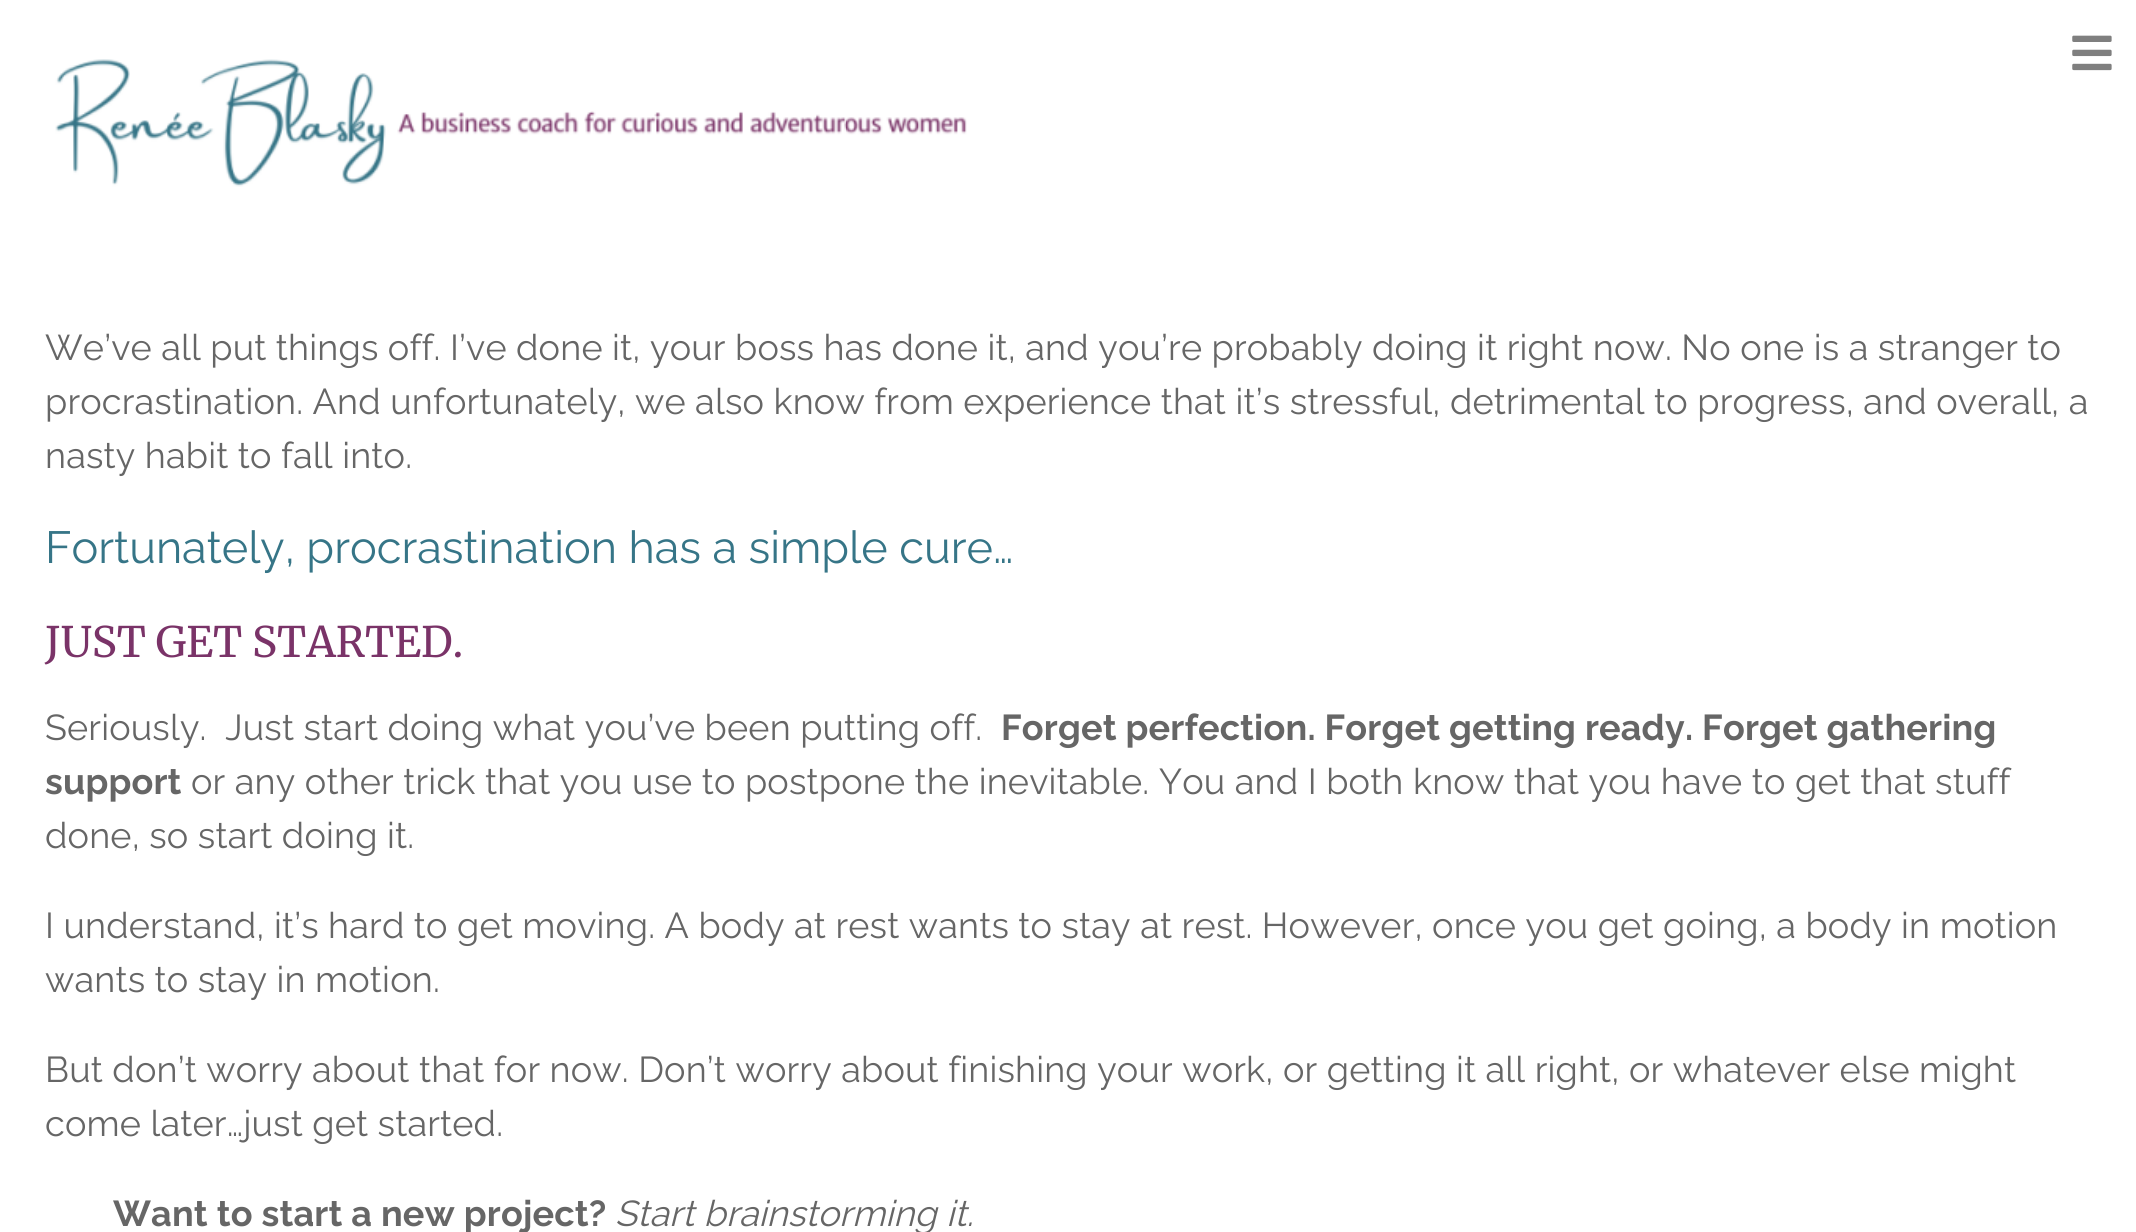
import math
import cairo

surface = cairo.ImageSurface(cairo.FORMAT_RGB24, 2136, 1232)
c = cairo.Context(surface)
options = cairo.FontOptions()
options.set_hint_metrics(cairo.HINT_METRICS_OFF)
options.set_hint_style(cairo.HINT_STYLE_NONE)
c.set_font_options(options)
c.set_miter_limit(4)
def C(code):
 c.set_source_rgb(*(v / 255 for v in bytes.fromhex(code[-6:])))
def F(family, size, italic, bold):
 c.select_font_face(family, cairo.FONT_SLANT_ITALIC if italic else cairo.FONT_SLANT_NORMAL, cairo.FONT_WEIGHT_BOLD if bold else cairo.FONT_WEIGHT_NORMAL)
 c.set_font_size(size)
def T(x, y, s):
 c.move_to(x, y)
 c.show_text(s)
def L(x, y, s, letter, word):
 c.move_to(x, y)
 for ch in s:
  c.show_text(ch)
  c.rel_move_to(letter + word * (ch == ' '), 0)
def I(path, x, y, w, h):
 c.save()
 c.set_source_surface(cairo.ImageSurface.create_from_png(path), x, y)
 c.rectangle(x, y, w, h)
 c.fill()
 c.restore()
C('ffffff')
c.paint()
I('1.png',2072,35,40,36)
I('2.png',55,59,912,128)
F('Raleway',36,0,0)
C('666666')
L(45,360,'We’ve all put things off. I’ve done it, your boss has done it, and you’re probably doing it right now. No one is a stranger to',.18,0)
L(45,414,'procrastination. And unfortunately, we also know from experience that it’s stressful, detrimental to progress, and overall, a',.18,0)
L(45,468,'nasty habit to fall into.',.18,0)
F('Raleway',45,0,0)
C('367587')
T(45,563,'Fortunately, procrastination has a simple cure…')
F('Merriweather',42,0,0)
C('7a3368')
T(45,657,'JUST GET STARTED.')
F('Raleway',36,0,0)
C('666666')
L(45,740,'Seriously.  Just start doing what you’ve been putting off.',.18,0)
F('Raleway',36,0,1)
L(1001,740,'Forget perfection. Forget getting ready. Forget gathering',.18,0)
L(45,794,'support',.18,0)
F('Raleway',36,0,0)
L(191,794,'or any other trick that you use to postpone the inevitable. You and I both know that you have to get that stuff',.18,0)
L(45,848,'done, so start doing it.',.18,0)
L(45,938,'I understand, it’s hard to get moving. A body at rest wants to stay at rest. However, once you get going, a body in motion',.18,0)
L(45,992,'wants to stay in motion.',.18,0)
L(45,1082,'But don’t worry about that for now. Don’t worry about finishing your work, or getting it all right, or whatever else might',.18,0)
L(45,1136,'come later…just get started.',.18,0)
F('Raleway',36,0,1)
L(113,1226,'Want to start a new project?',.18,0)
F('Raleway',36,1,0)
L(615,1226,'Start brainstorming it.',.18,0)
surface.write_to_png('o.png')
